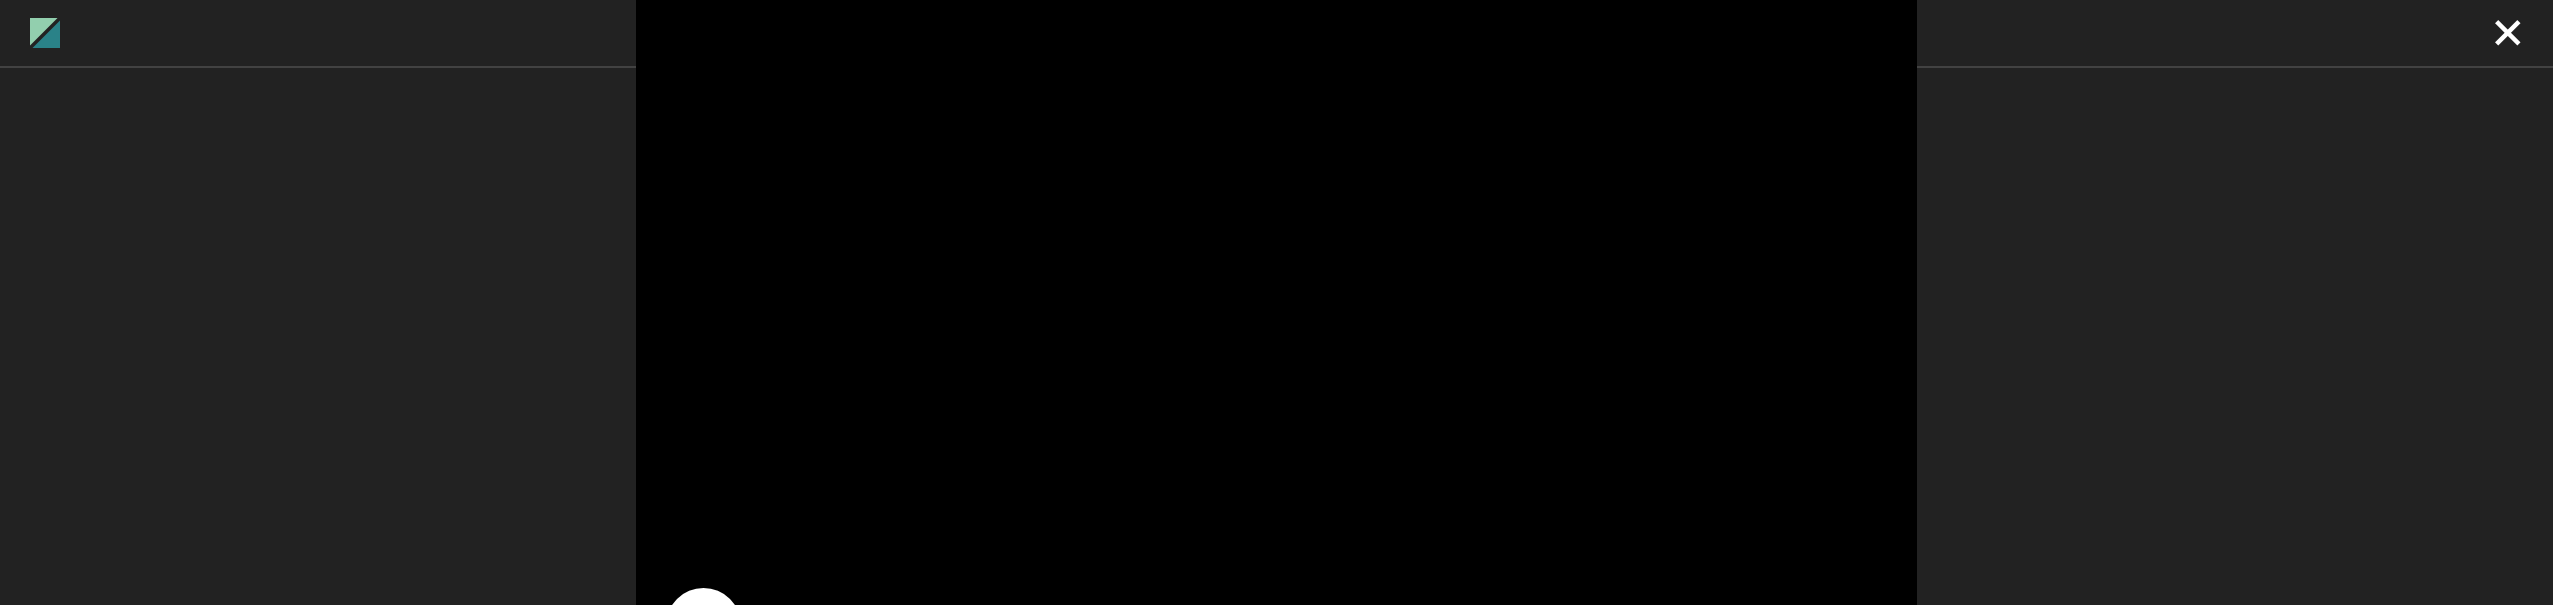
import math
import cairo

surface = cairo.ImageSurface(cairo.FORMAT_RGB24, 2553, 605)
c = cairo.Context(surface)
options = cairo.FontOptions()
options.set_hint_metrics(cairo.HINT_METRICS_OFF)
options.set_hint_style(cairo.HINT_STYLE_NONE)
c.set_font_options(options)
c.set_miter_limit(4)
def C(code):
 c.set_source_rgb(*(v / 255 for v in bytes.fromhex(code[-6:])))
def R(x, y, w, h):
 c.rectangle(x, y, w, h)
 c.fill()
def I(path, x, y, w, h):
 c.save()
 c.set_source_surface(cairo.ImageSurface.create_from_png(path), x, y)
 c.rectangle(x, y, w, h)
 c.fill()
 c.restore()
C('222222')
c.paint()
C('424242')
R(0,66,2553,2)
C('000000')
R(636,0,1281,605)
I('1.png',672,588,63,17)
C('92cfae')
c.set_fill_rule(cairo.FILL_RULE_EVEN_ODD)
c.new_path()
c.move_to(30,18)
c.line_to(30,45.5)
c.line_to(57.5,18)
c.close_path()
c.fill()
C('2a8288')
c.new_path()
c.move_to(32.5,48)
c.line_to(60,48)
c.line_to(60,20.5)
c.close_path()
c.fill()
I('2.png',2495,20,26,26)
surface.write_to_png('o.png')
